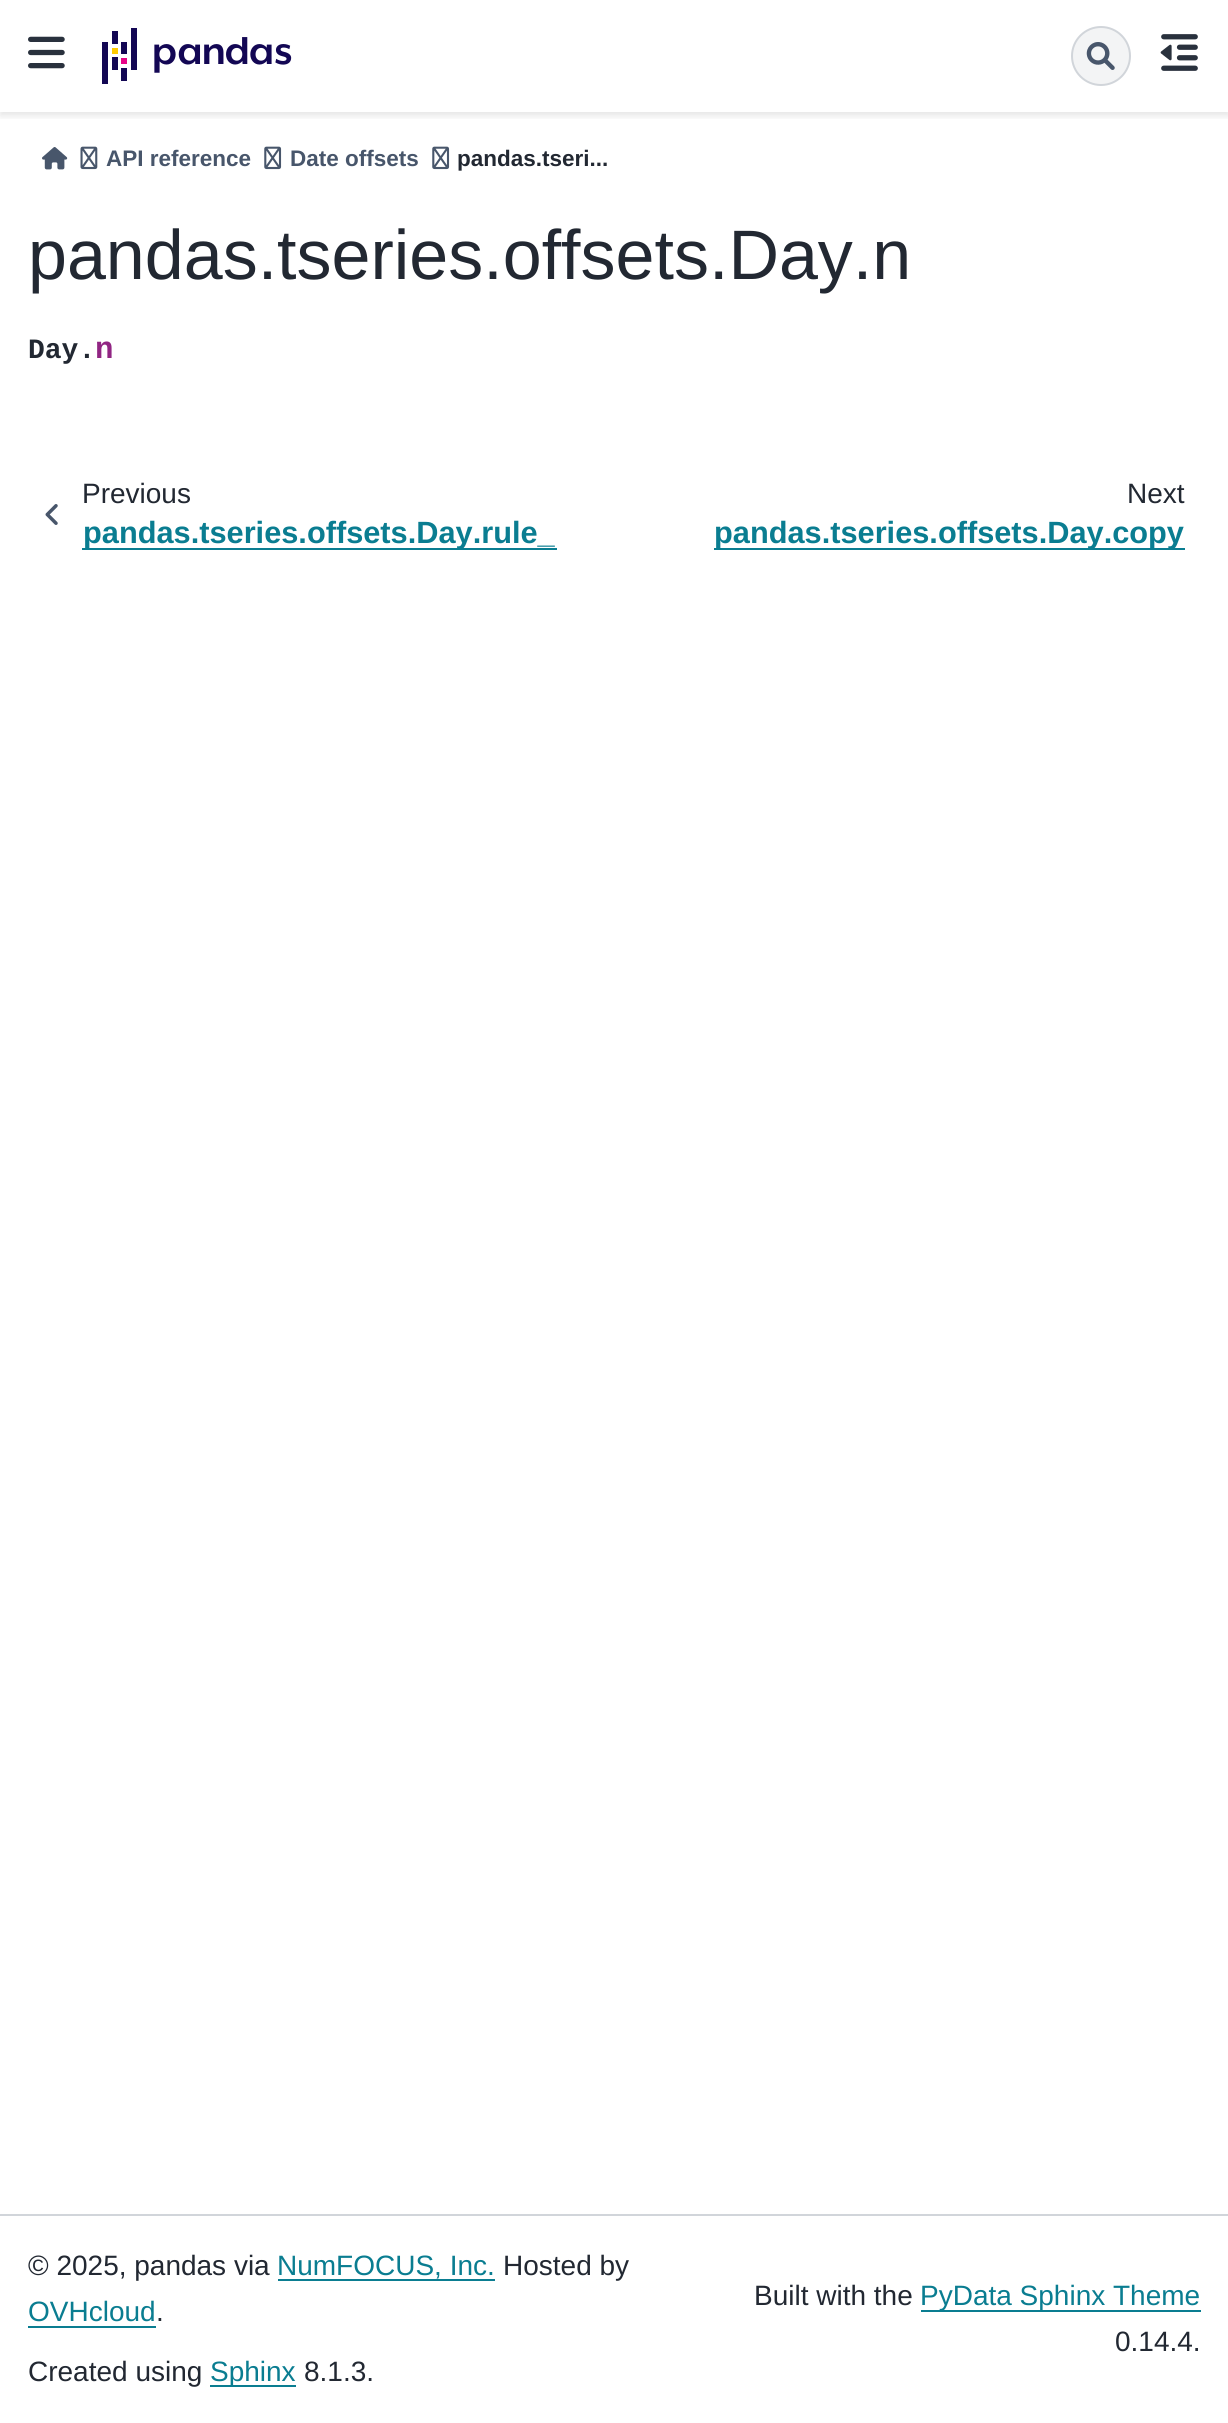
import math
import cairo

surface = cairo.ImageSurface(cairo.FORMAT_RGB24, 1228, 2423)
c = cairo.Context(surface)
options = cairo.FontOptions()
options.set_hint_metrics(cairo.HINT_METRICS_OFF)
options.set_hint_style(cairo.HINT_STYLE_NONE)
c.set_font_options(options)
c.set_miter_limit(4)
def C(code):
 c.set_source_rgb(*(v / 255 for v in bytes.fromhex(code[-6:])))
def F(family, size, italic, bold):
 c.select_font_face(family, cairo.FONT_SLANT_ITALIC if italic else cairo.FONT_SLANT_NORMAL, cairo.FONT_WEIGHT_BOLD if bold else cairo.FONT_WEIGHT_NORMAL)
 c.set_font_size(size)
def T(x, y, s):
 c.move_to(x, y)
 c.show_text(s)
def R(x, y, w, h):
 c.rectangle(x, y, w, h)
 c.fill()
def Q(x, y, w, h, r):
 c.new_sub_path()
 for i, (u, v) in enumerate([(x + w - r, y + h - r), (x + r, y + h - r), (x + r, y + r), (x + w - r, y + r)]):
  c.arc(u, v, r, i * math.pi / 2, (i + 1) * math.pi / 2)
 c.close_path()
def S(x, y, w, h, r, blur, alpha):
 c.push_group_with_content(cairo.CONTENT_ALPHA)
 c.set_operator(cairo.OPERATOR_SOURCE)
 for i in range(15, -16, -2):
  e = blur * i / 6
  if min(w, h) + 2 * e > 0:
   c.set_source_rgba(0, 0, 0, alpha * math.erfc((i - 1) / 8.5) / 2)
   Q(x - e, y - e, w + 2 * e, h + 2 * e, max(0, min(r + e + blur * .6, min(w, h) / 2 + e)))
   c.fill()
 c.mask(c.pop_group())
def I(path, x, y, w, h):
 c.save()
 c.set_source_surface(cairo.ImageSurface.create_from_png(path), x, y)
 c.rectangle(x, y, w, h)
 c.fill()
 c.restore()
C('ffffff')
c.paint()
c.save()
c.rectangle(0,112,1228,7)
c.clip()
C('000000')
S(0,4,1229,112,0,3.5,.1)
c.restore()
I('1.png',28,36,37,33)
I('2.png',102,28,190,56)
C('f3f4f5')
c.arc(1101,56,29,0,2 * math.pi)
c.fill_preserve()
C('d1d5da')
c.stroke()
I('3.png',1086,42,29,28)
I('4.png',1160,34,38,37)
I('5.png',42,147,26,23)
I('6.png',80,146,18,24)
F('Liberation Sans',22.5,0,1)
C('48566b')
T(106,166,'API reference')
I('7.png',264,146,18,24)
T(290,166,'Date offsets')
I('7.png',432,146,18,24)
C('222832')
T(457,166,'pandas.tseri...')
F('Liberation Sans',70,0,0)
T(28,279,'pandas.tseries.offsets.Day.n')
F('Liberation Mono',28,0,1)
T(28,358,'Day.')
F('Liberation Mono',30.75,0,1)
C('912583')
T(95,358,'n')
I('8.png',45,504,13,21)
F('Liberation Sans',28,0,0)
C('222832')
T(82,503,'Previous')
C('0a7d91')
R(82,548,475,2)
F('Liberation Sans',30.75,0,1)
T(83,543,'pandas.tseries.offsets.Day.rule_')
F('Liberation Sans',28,0,0)
C('222832')
T(1127,503,'Next')
C('0a7d91')
R(714,548,471,2)
F('Liberation Sans',30.75,0,1)
T(714,543,'pandas.tseries.offsets.Day.copy')
C('d1d5da')
R(0,2214,1228,2)
F('Liberation Sans',28,0,0)
C('222832')
T(28,2275,'© 2025, pandas via')
C('0a7d91')
T(277,2275,'NumFOCUS, Inc.')
R(278,2279,217,2)
C('222832')
T(503,2275,'Hosted by')
C('0a7d91')
T(28,2321,'OVHcloud')
R(28,2326,128,2)
C('222832')
T(156,2321,'.')
T(28,2381,'Created using')
C('0a7d91')
R(210,2385,86,2)
T(210,2381,'Sphinx')
C('222832')
T(304,2381,'8.1.3.')
T(754,2305,'Built with the')
C('0a7d91')
R(921,2310,280,2)
T(920,2305,'PyData Sphinx Theme')
C('222832')
T(1115,2351,'0.14.4.')
surface.write_to_png('o.png')
